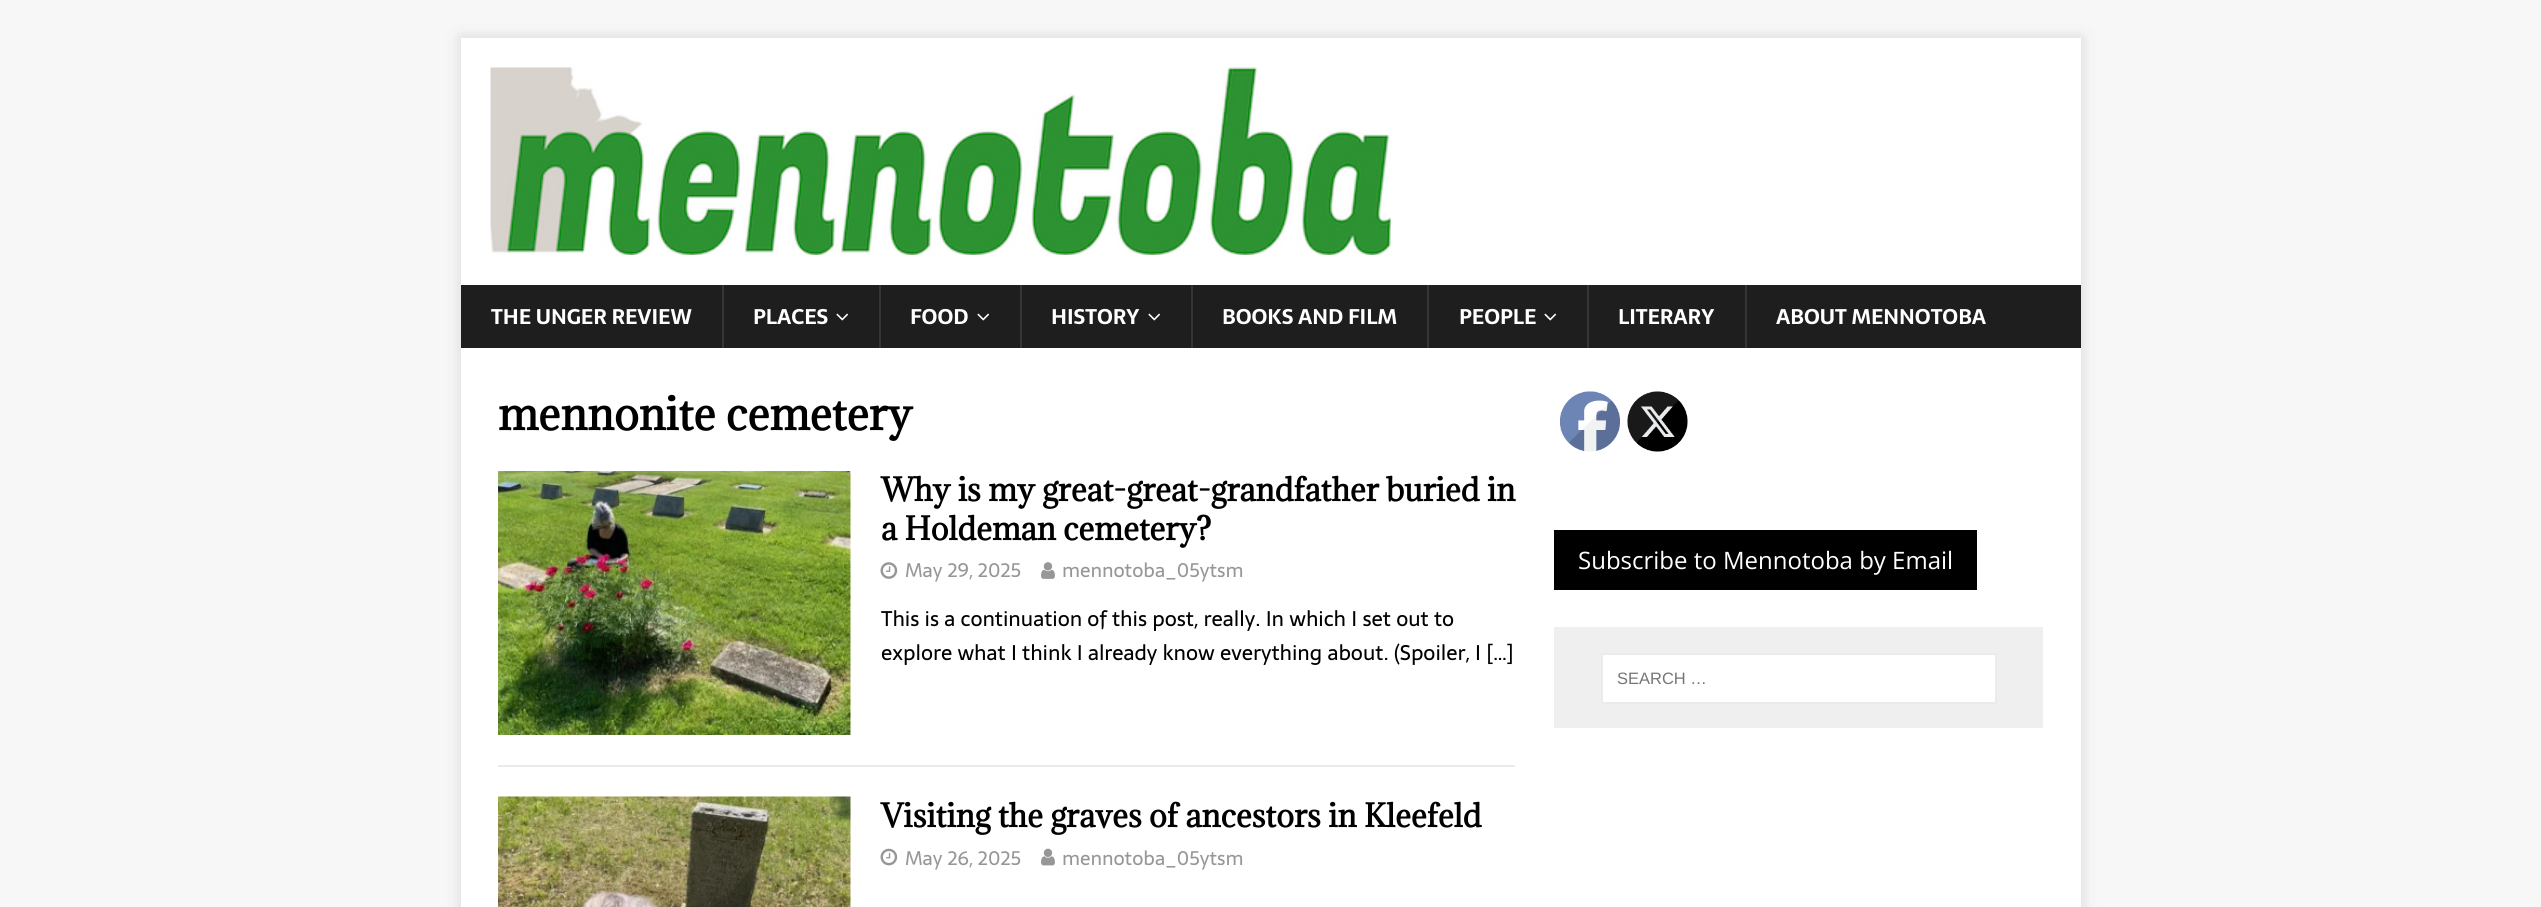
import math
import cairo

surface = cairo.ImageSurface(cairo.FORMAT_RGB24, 2541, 907)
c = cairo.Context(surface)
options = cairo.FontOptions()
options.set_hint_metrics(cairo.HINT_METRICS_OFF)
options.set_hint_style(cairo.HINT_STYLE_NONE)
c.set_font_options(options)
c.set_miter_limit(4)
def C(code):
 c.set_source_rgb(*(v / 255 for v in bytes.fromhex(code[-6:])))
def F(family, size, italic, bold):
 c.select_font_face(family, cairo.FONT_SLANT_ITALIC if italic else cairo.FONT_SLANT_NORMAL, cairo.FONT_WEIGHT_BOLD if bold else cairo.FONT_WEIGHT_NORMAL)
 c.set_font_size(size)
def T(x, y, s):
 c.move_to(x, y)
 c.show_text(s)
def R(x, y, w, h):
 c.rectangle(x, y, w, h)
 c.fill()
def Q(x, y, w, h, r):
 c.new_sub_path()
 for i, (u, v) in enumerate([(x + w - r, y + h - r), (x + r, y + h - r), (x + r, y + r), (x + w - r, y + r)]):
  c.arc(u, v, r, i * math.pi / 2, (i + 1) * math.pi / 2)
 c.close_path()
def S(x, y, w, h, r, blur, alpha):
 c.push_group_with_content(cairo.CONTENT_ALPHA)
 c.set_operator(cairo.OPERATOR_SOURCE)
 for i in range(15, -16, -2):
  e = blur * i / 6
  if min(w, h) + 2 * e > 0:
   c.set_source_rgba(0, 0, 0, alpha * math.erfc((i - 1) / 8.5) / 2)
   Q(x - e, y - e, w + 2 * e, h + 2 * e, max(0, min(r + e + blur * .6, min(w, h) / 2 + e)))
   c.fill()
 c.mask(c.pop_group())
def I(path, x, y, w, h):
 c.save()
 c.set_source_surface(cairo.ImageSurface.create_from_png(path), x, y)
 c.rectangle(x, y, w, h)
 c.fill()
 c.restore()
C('f7f7f7')
c.paint()
C('323232')
S(461,38,1620,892,0,7.5,.17)
C('ffffff')
R(461,38,1620,247)
I('1.png',490,67,901,188)
C('1f1e1e')
R(461,285,1620,63)
F('Sarala',21,0,1)
C('ffffff')
T(491,324,'THE UNGER REVIEW')
C('353535')
R(722,285,2,63)
C('ffffff')
T(753,324,'PLACES')
I('2.png',836,313,13,8)
C('353535')
R(879,285,2,63)
C('ffffff')
T(910,324,'FOOD')
I('2.png',977,313,13,8)
C('353535')
R(1020,285,2,63)
C('ffffff')
T(1051,324,'HISTORY')
I('2.png',1148,313,13,8)
C('353535')
R(1191,285,2,63)
C('ffffff')
T(1222,324,'BOOKS AND FILM')
C('353535')
R(1427,285,2,63)
C('ffffff')
T(1459,324,'PEOPLE')
I('2.png',1544,313,13,8)
C('353535')
R(1587,285,2,63)
C('ffffff')
T(1618,324,'LITERARY')
C('353535')
R(1745,285,2,63)
C('ffffff')
T(1776,324,'ABOUT MENNOTOBA')
R(461,348,1620,559)
F('Adamina',42,0,1)
C('000000')
T(498,430,'mennonite cemetery')
C('ebebeb')
R(498,765,1017,2)
I('3.png',498,471,353,264)
F('Adamina',30,0,1)
C('000000')
T(881,501,'Why is my great-great-grandfather buried in')
T(881,540,'a Holdeman cemetery?')
I('4.png',880,562,18,17)
F('Sarala',19.5,0,0)
C('979797')
T(905,577,'May 29, 2025')
I('5.png',1041,562,14,17)
T(1062,577,'mennotoba_05ytsm')
F('Sarala',21,0,0)
C('000000')
T(881,626,'This is a continuation of this post, really. In which I set out to')
T(881,660,'explore what I think I already know everything about. (Spoiler, I […]')
I('6.png',498,796,353,111)
F('Adamina',30,0,1)
T(881,827,'Visiting the graves of ancestors in Kleefeld')
I('7.png',880,848,18,18)
F('Sarala',19.5,0,0)
C('979797')
T(905,865,'May 26, 2025')
I('8.png',1041,848,14,18)
T(1062,865,'mennotoba_05ytsm')
I('9.png',1560,391,60,61)
I('10.png',1627,391,61,61)
C('000000')
R(1554,530,423,60)
F('Open Sans',24,0,0)
C('ffffff')
T(1578,569,'Subscribe to Mennotoba by Email')
C('efefef')
R(1554,627,489,101)
C('ffffff')
c.rectangle(1602,654,394,49)
c.fill_preserve()
C('ebebeb')
c.stroke()
F('Liberation Sans',16.5,0,0)
C('757575')
T(1617,684,'SEARCH …')
surface.write_to_png('o.png')
